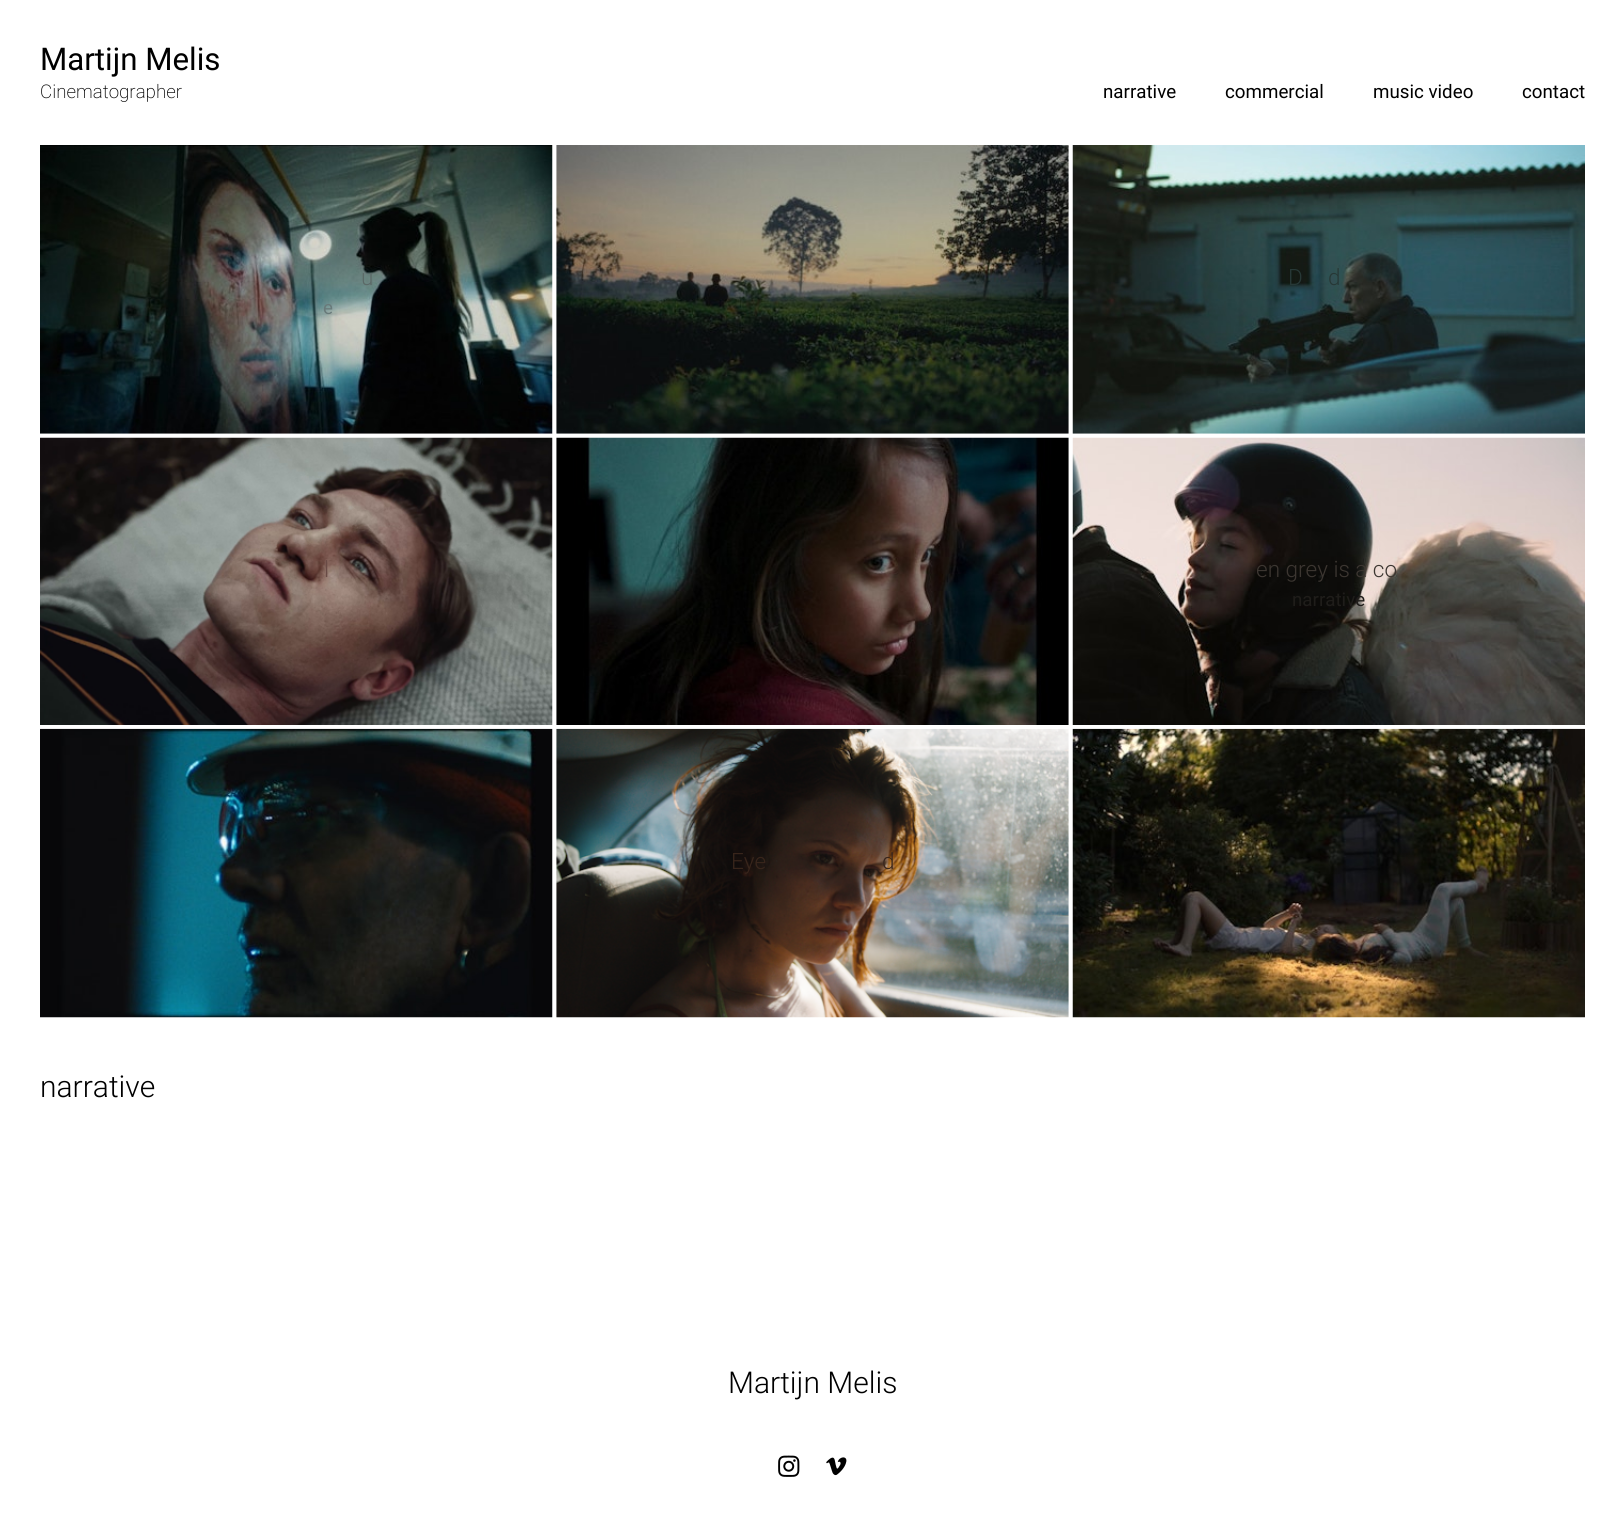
import math
import cairo

surface = cairo.ImageSurface(cairo.FORMAT_RGB24, 1624, 1539)
c = cairo.Context(surface)
options = cairo.FontOptions()
options.set_hint_metrics(cairo.HINT_METRICS_OFF)
options.set_hint_style(cairo.HINT_STYLE_NONE)
c.set_font_options(options)
c.set_miter_limit(4)
def C(code):
 c.set_source_rgb(*(v / 255 for v in bytes.fromhex(code[-6:])))
def F(family, size, italic, bold):
 c.select_font_face(family, cairo.FONT_SLANT_ITALIC if italic else cairo.FONT_SLANT_NORMAL, cairo.FONT_WEIGHT_BOLD if bold else cairo.FONT_WEIGHT_NORMAL)
 c.set_font_size(size)
def T(x, y, s):
 c.move_to(x, y)
 c.show_text(s)
def I(path, x, y, w, h):
 c.save()
 c.set_source_surface(cairo.ImageSurface.create_from_png(path), x, y)
 c.rectangle(x, y, w, h)
 c.fill()
 c.restore()
C('ffffff')
c.paint()
F('Roboto',31.25,0,0)
C('000000')
T(40,70,'Martijn Melis')
F('Roboto ExtraLight',18.75,0,0)
T(40,98,'Cinematographer')
F('Roboto',18.75,0,0)
T(1103,98,'narrative')
T(1225,98,'commercial')
T(1373,98,'music video')
T(1522,98,'contact')
I('1.png',40,145,513,289)
F('Roboto Light',22.5,0,0)
C('5b6967')
T(361,285,'u')
F('Roboto',18.75,0,0)
C('697a7a')
T(323,314,'e')
I('2.png',556,145,513,289)
I('3.png',1072,145,513,289)
F('Roboto Light',22.5,0,0)
C('273836')
T(1288,285,'D')
T(1328,285,'d')
I('4.png',40,437,513,288)
C('694b46')
T(324,577,'l')
I('5.png',556,437,513,288)
I('6.png',1072,437,513,288)
C('3c3631')
T(1256,577,'en grey is a co')
F('Roboto',18.75,0,0)
C('1f1d1a')
T(1292,606,'narrative')
I('7.png',40,728,513,290)
I('8.png',556,728,513,290)
F('Roboto Light',22.5,0,0)
C('38251b')
T(731,869,'Eye')
T(882,869,'d')
I('9.png',1072,728,513,290)
F('Roboto Light',30,0,0)
C('000000')
T(40,1097,'narrative')
T(728,1393,'Martijn Melis')
I('10.png',778,1455,22,22)
I('11.png',826,1457,21,19)
surface.write_to_png('o.png')
